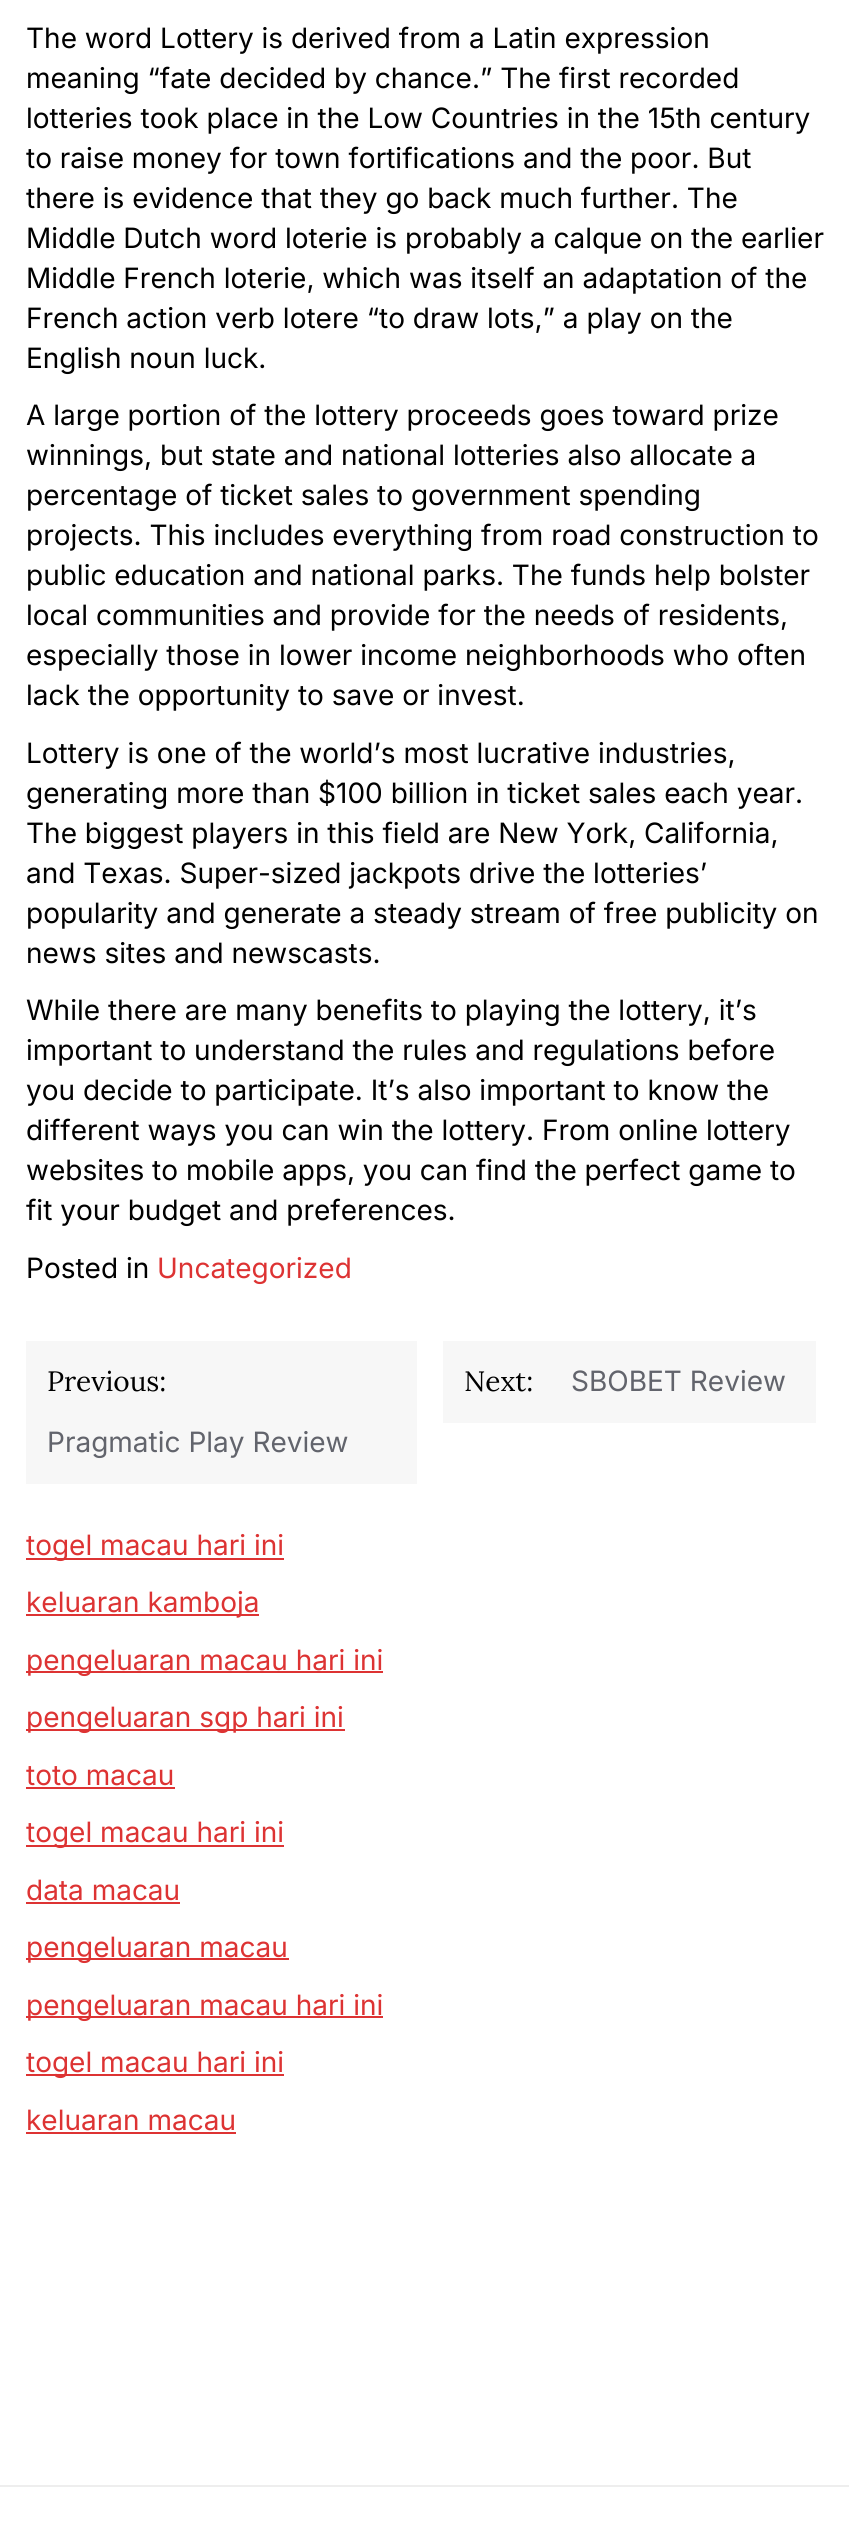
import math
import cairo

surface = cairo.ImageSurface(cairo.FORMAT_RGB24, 849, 2535)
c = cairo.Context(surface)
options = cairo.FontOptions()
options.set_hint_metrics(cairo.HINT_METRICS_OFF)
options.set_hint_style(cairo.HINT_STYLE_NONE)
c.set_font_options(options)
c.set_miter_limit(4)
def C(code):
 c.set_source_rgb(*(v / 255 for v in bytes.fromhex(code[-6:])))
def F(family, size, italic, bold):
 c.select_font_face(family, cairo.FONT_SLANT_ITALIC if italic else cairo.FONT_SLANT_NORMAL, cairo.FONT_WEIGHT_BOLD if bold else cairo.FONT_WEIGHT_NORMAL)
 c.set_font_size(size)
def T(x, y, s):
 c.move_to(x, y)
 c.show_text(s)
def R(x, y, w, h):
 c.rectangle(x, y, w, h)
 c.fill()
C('ffffff')
c.paint()
F('Inter',28,0,0)
C('000000')
T(26,48,'The word Lottery is derived from a Latin expression')
T(26,88,'meaning “fate decided by chance.” The first recorded')
T(26,128,'lotteries took place in the Low Countries in the 15th century')
T(26,168,'to raise money for town fortifications and the poor. But')
T(26,208,'there is evidence that they go back much further. The')
T(26,248,'Middle Dutch word loterie is probably a calque on the earlier')
T(26,288,'Middle French loterie, which was itself an adaptation of the')
T(26,328,'French action verb lotere “to draw lots,” a play on the')
T(26,368,'English noun luck.')
T(26,425,'A large portion of the lottery proceeds goes toward prize')
T(26,465,'winnings, but state and national lotteries also allocate a')
T(26,505,'percentage of ticket sales to government spending')
T(26,545,'projects. This includes everything from road construction to')
T(26,585,'public education and national parks. The funds help bolster')
T(26,625,'local communities and provide for the needs of residents,')
T(26,665,'especially those in lower income neighborhoods who often')
T(26,705,'lack the opportunity to save or invest.')
T(26,763,'Lottery is one of the world’s most lucrative industries,')
T(26,803,'generating more than $100 billion in ticket sales each year.')
T(26,843,'The biggest players in this field are New York, California,')
T(26,883,'and Texas. Super-sized jackpots drive the lotteries’')
T(26,923,'popularity and generate a steady stream of free publicity on')
T(26,963,'news sites and newscasts.')
T(26,1020,'While there are many benefits to playing the lottery, it’s')
T(26,1060,'important to understand the rules and regulations before')
T(26,1100,'you decide to participate. It’s also important to know the')
T(26,1140,'different ways you can win the lottery. From online lottery')
T(26,1180,'websites to mobile apps, you can find the perfect game to')
T(26,1220,'fit your budget and preferences.')
T(26,1278,'Posted in')
C('dd3333')
T(157,1278,'Uncategorized')
C('f7f7f7')
R(26,1341,391,143)
F('Lora',28,0,0)
C('000000')
T(47,1391,'Previous:')
F('Inter',28,0,0)
C('62646c')
T(47,1452,'Pragmatic Play Review')
C('f7f7f7')
R(443,1341,373,82)
F('Lora',28,0,0)
C('000000')
T(464,1391,'Next:')
F('Inter',28,0,0)
C('62646c')
T(571,1391,'SBOBET Review')
C('dd3333')
R(26,1558,258,2)
T(26,1555,'togel macau hari ini')
R(26,1614,233,2)
T(26,1612,'keluaran kamboja')
R(26,1671,357,2)
T(26,1670,'pengeluaran macau hari ini')
R(26,1729,319,2)
T(26,1727,'pengeluaran sgp hari ini')
T(26,1785,'toto macau')
R(26,1787,149,2)
R(26,1845,258,2)
T(26,1842,'togel macau hari ini')
T(26,1900,'data macau')
R(26,1902,154,2)
R(26,1958,263,2)
T(26,1957,'pengeluaran macau')
R(26,2016,357,2)
T(26,2015,'pengeluaran macau hari ini')
R(26,2074,258,2)
T(26,2072,'togel macau hari ini')
T(26,2130,'keluaran macau')
R(26,2132,210,2)
C('eeeeee')
R(0,2485,849,2)
surface.write_to_png('o.png')
